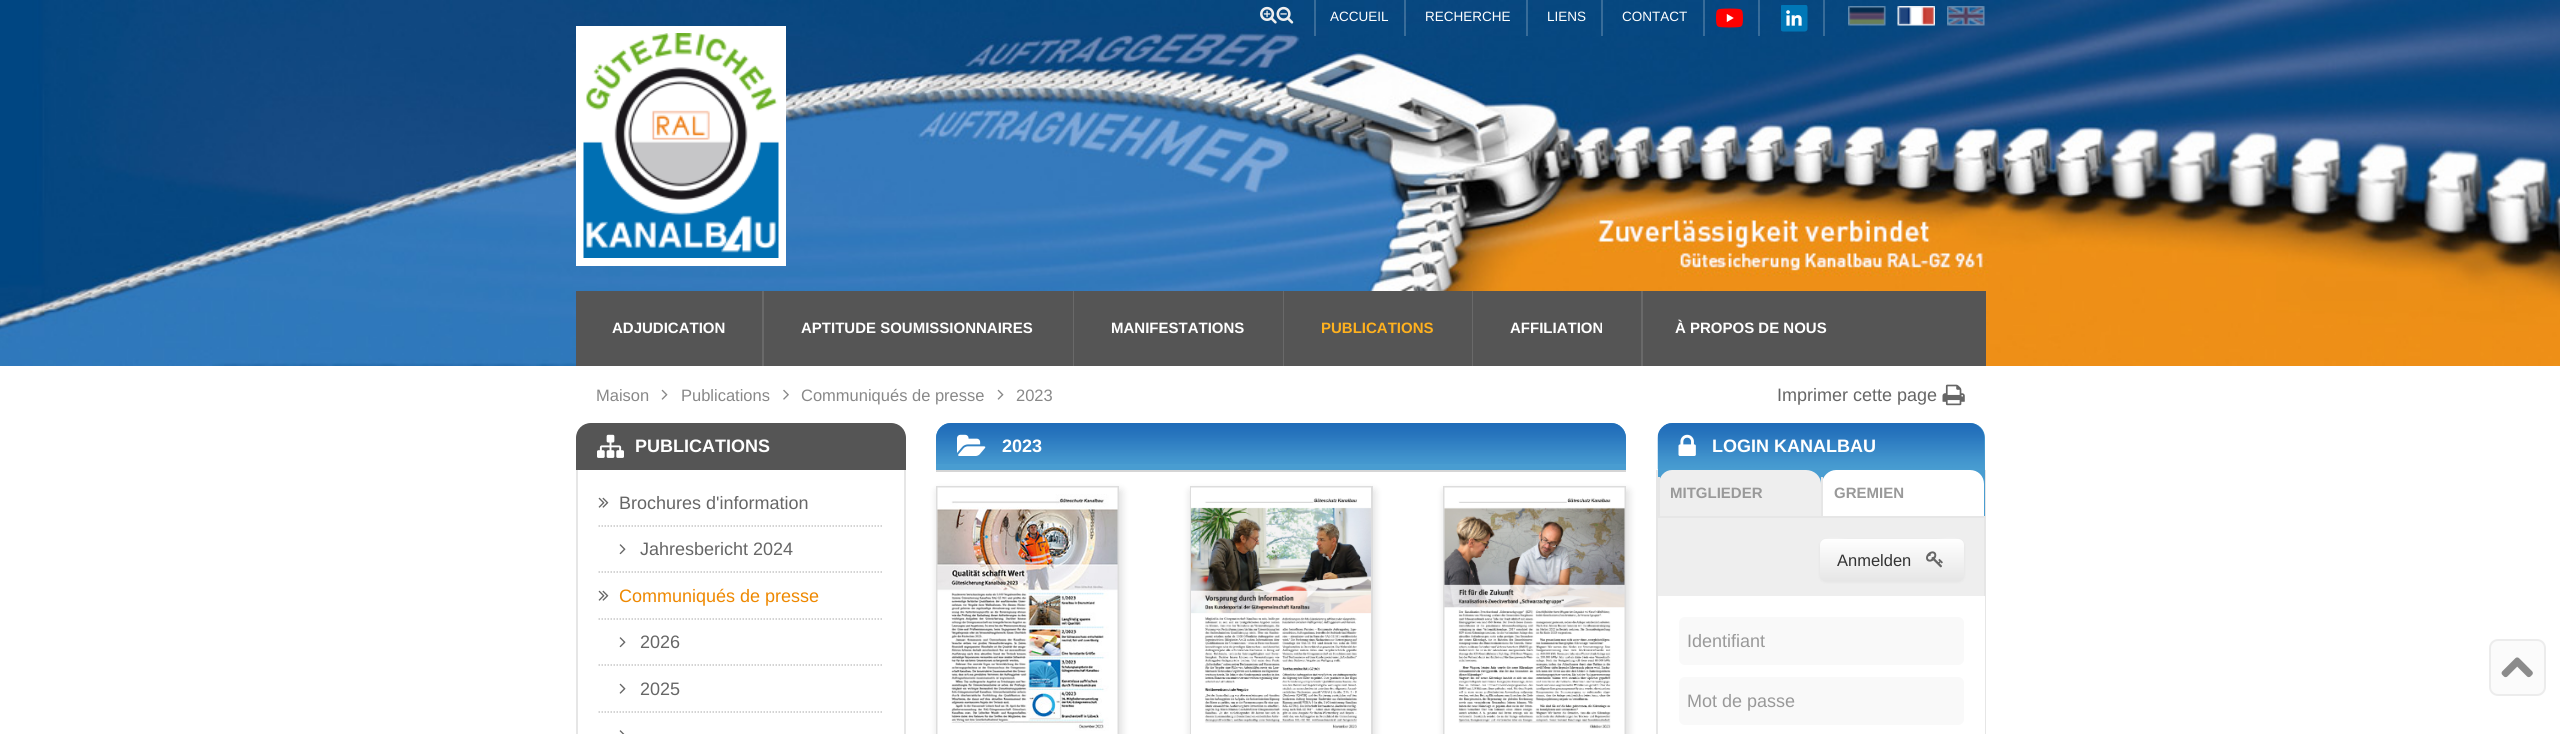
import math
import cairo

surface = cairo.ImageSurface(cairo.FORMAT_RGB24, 2560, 734)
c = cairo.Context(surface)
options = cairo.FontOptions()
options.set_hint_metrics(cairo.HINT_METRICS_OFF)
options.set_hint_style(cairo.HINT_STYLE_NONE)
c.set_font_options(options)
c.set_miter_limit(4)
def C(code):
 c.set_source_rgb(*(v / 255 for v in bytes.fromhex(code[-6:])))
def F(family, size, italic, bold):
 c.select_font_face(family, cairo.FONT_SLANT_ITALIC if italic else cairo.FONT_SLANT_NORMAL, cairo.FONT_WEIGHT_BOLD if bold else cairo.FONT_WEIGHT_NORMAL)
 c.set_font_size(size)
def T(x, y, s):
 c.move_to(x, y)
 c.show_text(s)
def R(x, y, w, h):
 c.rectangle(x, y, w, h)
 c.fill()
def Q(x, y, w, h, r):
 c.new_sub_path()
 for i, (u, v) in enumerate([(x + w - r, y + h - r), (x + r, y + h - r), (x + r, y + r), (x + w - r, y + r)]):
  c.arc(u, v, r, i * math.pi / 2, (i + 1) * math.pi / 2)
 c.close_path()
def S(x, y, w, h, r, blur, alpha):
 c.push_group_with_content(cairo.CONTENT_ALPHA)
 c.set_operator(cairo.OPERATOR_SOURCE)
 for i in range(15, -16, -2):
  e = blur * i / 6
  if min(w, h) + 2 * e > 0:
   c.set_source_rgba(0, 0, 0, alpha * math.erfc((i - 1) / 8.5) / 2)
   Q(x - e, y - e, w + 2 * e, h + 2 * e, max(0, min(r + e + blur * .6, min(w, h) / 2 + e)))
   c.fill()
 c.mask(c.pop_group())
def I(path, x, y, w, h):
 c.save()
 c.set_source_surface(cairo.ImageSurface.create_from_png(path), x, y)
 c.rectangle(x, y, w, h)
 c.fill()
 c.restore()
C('ffffff')
c.paint()
I('1.png',0,0,2560,366)
c.set_source_rgba(1,1,1,0.2)
R(1314,0,2,36)
I('2.png',1260,6,17,18)
I('3.png',1276,6,18,18)
R(1404,0,2,36)
F('Liberation Sans',13.5,0,0)
C('ffffff')
T(1330,21,'ACCUEIL')
C('386c99')
R(1526,0,2,36)
C('ffffff')
T(1425,21,'RECHERCHE')
C('386c99')
R(1601,0,2,36)
C('ffffff')
T(1547,21,'LIENS')
c.set_source_rgba(1,1,1,0.2)
R(1703,0,2,36)
C('ffffff')
T(1622,21,'CONTACT')
c.set_source_rgba(1,1,1,0.2)
R(1758,0,2,36)
I('4.png',1716,8,27,20)
C('386c99')
R(1823,0,2,36)
I('5.png',1781,5,27,27)
I('6.png',1848,6,38,20)
I('7.png',1897,6,38,20)
I('8.png',1947,6,38,20)
c.rectangle(580,30,202,232)
C('ffffff')
c.set_line_width(8)
c.stroke()
I('9.png',583,33,196,225)
C('555555')
R(576,291,1410,75)
F('Liberation Sans',15,0,1)
C('ffffff')
T(612,333,'ADJUDICATION')
C('696969')
R(762,291,2,75)
C('ffffff')
T(801,333,'APTITUDE SOUMISSIONNAIRES')
C('696969')
R(1073,291,1,75)
C('ffffff')
T(1111,333,'MANIFESTATIONS')
C('696969')
R(1283,291,1,75)
C('ffb11e')
T(1321,333,'PUBLICATIONS')
C('696969')
R(1472,291,1,75)
C('ffffff')
T(1510,333,'AFFILIATION')
C('696969')
R(1641,291,2,75)
C('ffffff')
T(1675,333,'À PROPOS DE NOUS')
F('Liberation Sans',18,0,0)
C('666666')
T(1777,401,'Imprimer cette page')
I('10.png',1942,384,23,22)
F('Liberation Sans',16.5,0,0)
C('888888')
T(596,401,'Maison')
I('11.png',661,389,7,11)
T(681,401,'Publications')
I('12.png',783,389,6,11)
T(801,401,'Communiqués de presse')
I('11.png',997,389,7,11)
T(1016,401,'2023')
C('555555')
c.new_path()
c.move_to(591,423)
c.line_to(891,423)
c.curve_to(899.5,423,906,429.5,906,438)
c.line_to(906,470)
c.line_to(576,470)
c.line_to(576,438)
c.curve_to(576,429.5,582.5,423,591,423)
c.close_path()
c.fill()
I('13.png',597,434,27,24)
F('Liberation Sans',18,0,1)
C('ffffff')
T(635,452,'PUBLICATIONS')
C('e6e6e6')
c.set_fill_rule(cairo.FILL_RULE_EVEN_ODD)
c.new_path()
c.move_to(576,470)
c.line_to(906,470)
c.line_to(906,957)
c.curve_to(906,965,899,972,891,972)
c.line_to(591,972)
c.curve_to(583,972,576,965,576,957)
c.close_path()
c.move_to(578,470)
c.line_to(904,470)
c.line_to(904,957)
c.curve_to(904,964,898,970,891,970)
c.line_to(591,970)
c.curve_to(584,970,578,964,578,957)
c.close_path()
c.fill()
I('14.png',598,497,11,11)
F('Liberation Sans',18,0,0)
C('666666')
T(619,509,'Brochures d\'information')
c.new_path()
c.move_to(598.5,526)
c.line_to(883.5,526)
C('c6c6c6')
c.set_line_width(1.5)
c.set_dash([1.5,1.5])
c.stroke()
I('15.png',619,544,7,11)
C('666666')
T(640,555,'Jahresbericht 2024')
c.new_path()
c.move_to(598.5,572)
c.line_to(883.5,572)
C('c6c6c6')
c.stroke()
I('14.png',598,590,11,11)
C('ee8800')
T(619,602,'Communiqués de presse')
c.new_path()
c.move_to(598.5,619)
c.line_to(883.5,619)
C('c6c6c6')
c.stroke()
I('15.png',619,637,7,11)
C('666666')
T(640,648,'2026')
c.new_path()
c.move_to(598.5,665)
c.line_to(883.5,665)
C('c6c6c6')
c.stroke()
I('16.png',619,683,7,11)
C('666666')
T(640,695,'2025')
c.new_path()
c.move_to(598.5,712)
c.line_to(883.5,712)
C('c6c6c6')
c.stroke()
I('17.png',619,730,6,4)
C('499dd1')
c.new_path()
c.move_to(951,423)
c.line_to(1611,423)
c.curve_to(1619.5,423,1626,429.5,1626,438)
c.line_to(1626,471)
c.line_to(936,471)
c.line_to(936,438)
c.curve_to(936,429.5,942.5,423,951,423)
c.close_path()
c.fill()
I('18.png',936,423,690,41)
C('d5d5d5')
R(936,470,690,2)
I('19.png',957,434,29,22)
F('Liberation Sans',18,0,1)
C('ffffff')
T(1002,452,'2023')
C('000000')
S(938,491,183,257,0,4.5,.15)
c.rectangle(937,487,181,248)
C('dddddd')
c.set_line_width(2)
c.set_dash([])
c.stroke()
I('20.png',937,487,181,247)
C('000000')
S(1191,491,183,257,0,4.5,.15)
c.rectangle(1191,487,181,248)
C('dddddd')
c.stroke()
I('21.png',1191,487,180,247)
C('000000')
S(1445,491,183,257,0,4.5,.15)
c.rectangle(1444,487,181,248)
C('dddddd')
c.stroke()
I('22.png',1444,487,181,247)
C('499dd1')
c.new_path()
c.move_to(1673,423)
c.line_to(1970,423)
c.curve_to(1978.5,423,1985,429.5,1985,438)
c.line_to(1985,470)
c.line_to(1658,470)
c.line_to(1658,438)
c.curve_to(1658,429.5,1664.5,423,1673,423)
c.close_path()
c.fill()
I('23.png',1657,423,328,47)
I('24.png',1678,434,18,22)
C('ffffff')
T(1712,452,'LOGIN KANALBAU')
C('eeeeee')
R(1658,518,326,78)
C('e6e6e6')
c.new_path()
c.move_to(1656,470)
c.line_to(1986,470)
c.line_to(1986,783)
c.curve_to(1986,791,1979,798,1971,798)
c.line_to(1671,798)
c.curve_to(1663,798,1656,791,1656,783)
c.close_path()
c.move_to(1658,470)
c.line_to(1984,470)
c.line_to(1984,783)
c.curve_to(1984,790,1978,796,1971,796)
c.line_to(1671,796)
c.curve_to(1664,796,1658,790,1658,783)
c.close_path()
c.fill()
C('499dd1')
R(1658,470,327,46)
C('eeeeee')
c.set_fill_rule(cairo.FILL_RULE_WINDING)
c.new_path()
c.move_to(1672,470)
c.line_to(1806,470)
c.curve_to(1814,470,1821,476,1821,484)
c.line_to(1821,516)
c.line_to(1659,516)
c.line_to(1659,484)
c.curve_to(1659,476,1665,470,1672,470)
c.close_path()
c.fill()
C('e6e6e6')
R(1658,516,327,2)
R(1658,477,2,41)
F('Liberation Sans',15,0,1)
C('999999')
T(1670,498,'MITGLIEDER')
C('ffffff')
c.new_path()
c.move_to(1836,470)
c.line_to(1970,470)
c.curve_to(1978,470,1984,476,1984,484)
c.line_to(1984,516)
c.line_to(1822,516)
c.line_to(1822,484)
c.curve_to(1822,476,1829,470,1836,470)
c.close_path()
c.fill()
C('e6e6e6')
R(1821,477,2,41)
C('999999')
T(1834,498,'GREMIEN')
C('000000')
S(1820,540,144,42,6,1.5,.05)
gradient = cairo.LinearGradient(1892,539,1892,581)
gradient.add_color_stop_rgba(0,1,1,1,1)
gradient.add_color_stop_rgba(1,0.902,0.902,0.902,1)
c.set_source(gradient)
Q(1820,539,144,42,6)
c.fill()
c.set_source_rgba(1,1,1,0.2)
c.new_path()
c.move_to(1826,540)
c.line_to(1958,540)
c.curve_to(1961,540,1964,543,1964,546)
c.curve_to(1964,533,1941,539,1936,539)
c.line_to(1848,539)
c.curve_to(1843,539,1820,533,1820,546)
c.curve_to(1820,543,1822,540,1826,540)
c.close_path()
c.fill()
F('Liberation Sans',16.5,0,0)
C('333333')
T(1837,566,'Anmelden')
I('25.png',1926,551,17,17)
C('ffffff')
R(1984,596,1,138)
C('f9f9f9')
Q(1679,617,285,48,6)
c.fill()
F('Liberation Sans',18,0,0)
C('999999')
T(1687,647,'Identifiant')
C('f9f9f9')
Q(1679,677,285,48,6)
c.fill()
C('999999')
T(1687,707,'Mot de passe')
C('fbfbfb')
Q(2490,640,55,55,8)
c.fill_preserve()
C('ececec')
c.stroke()
I('26.png',2501,657,32,21)
surface.write_to_png('o.png')
